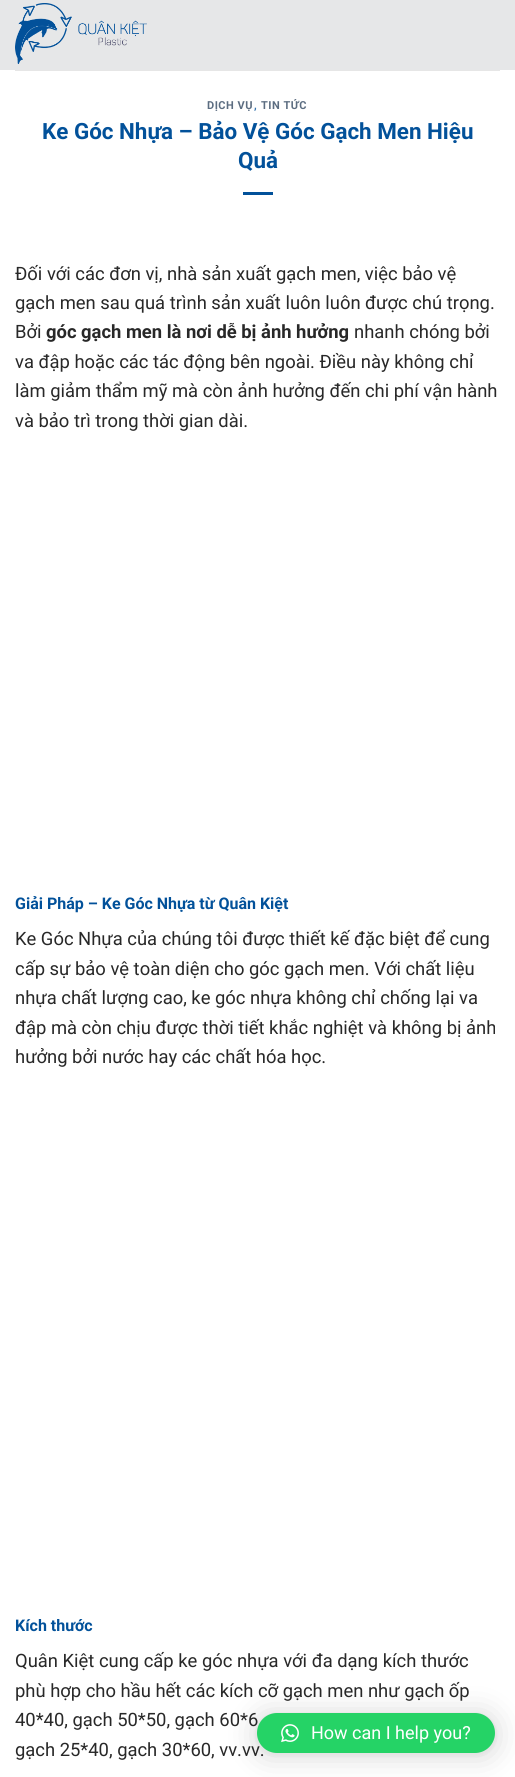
import math
import cairo

surface = cairo.ImageSurface(cairo.FORMAT_RGB24, 515, 1777)
c = cairo.Context(surface)
options = cairo.FontOptions()
options.set_hint_metrics(cairo.HINT_METRICS_OFF)
options.set_hint_style(cairo.HINT_STYLE_NONE)
c.set_font_options(options)
c.set_miter_limit(4)
def C(code):
 c.set_source_rgb(*(v / 255 for v in bytes.fromhex(code[-6:])))
def F(family, size, italic, bold):
 c.select_font_face(family, cairo.FONT_SLANT_ITALIC if italic else cairo.FONT_SLANT_NORMAL, cairo.FONT_WEIGHT_BOLD if bold else cairo.FONT_WEIGHT_NORMAL)
 c.set_font_size(size)
def T(x, y, s):
 c.move_to(x, y)
 c.show_text(s)
def L(x, y, s, letter, word):
 c.move_to(x, y)
 for ch in s:
  c.show_text(ch)
  c.rel_move_to(letter + word * (ch == ' '), 0)
def R(x, y, w, h):
 c.rectangle(x, y, w, h)
 c.fill()
def Q(x, y, w, h, r):
 c.new_sub_path()
 for i, (u, v) in enumerate([(x + w - r, y + h - r), (x + r, y + h - r), (x + r, y + r), (x + w - r, y + r)]):
  c.arc(u, v, r, i * math.pi / 2, (i + 1) * math.pi / 2)
 c.close_path()
def S(x, y, w, h, r, blur, alpha):
 c.push_group_with_content(cairo.CONTENT_ALPHA)
 c.set_operator(cairo.OPERATOR_SOURCE)
 for i in range(15, -16, -2):
  e = blur * i / 6
  if min(w, h) + 2 * e > 0:
   c.set_source_rgba(0, 0, 0, alpha * math.erfc((i - 1) / 8.5) / 2)
   Q(x - e, y - e, w + 2 * e, h + 2 * e, max(0, min(r + e + blur * .6, min(w, h) / 2 + e)))
   c.fill()
 c.mask(c.pop_group())
def I(path, x, y, w, h):
 c.save()
 c.set_source_surface(cairo.ImageSurface.create_from_png(path), x, y)
 c.rectangle(x, y, w, h)
 c.fill()
 c.restore()
C('ffffff')
c.paint()
C('e6e7e8')
R(0,0,515,70)
I('1.png',15,3,132,61)
C('e6e6e6')
R(15,70,485,1)
F('Roboto',11,0,1)
C('5c6d81')
L(207,109,'DỊCH VỤ',.5,0)
C('3574ae')
L(254,109,',',.5,0)
C('5c6d81')
L(261,109,'TIN TỨC',.5,0)
F('Roboto',22.4,0,1)
C('02519a')
T(42,139,'Ke Góc Nhựa – Bảo Vệ Góc Gạch Men Hiệu')
T(238,168,'Quả')
R(243,192,30,3)
F('Roboto',18.4,0,0)
C('282828')
T(15,280,'Đối với các đơn vị, nhà sản xuất gạch men, việc bảo vệ')
T(15,309,'gạch men sau quá trình sản xuất luôn luôn được chú trọng.')
T(15,338,'Bởi')
F('Roboto',18.4,0,1)
T(46,338,'góc gạch men là nơi dễ bị ảnh hưởng')
F('Roboto',18.4,0,0)
T(354,338,'nhanh chóng bởi')
T(15,368,'va đập hoặc các tác động bên ngoài. Điều này không chỉ')
T(15,397,'làm giảm thẩm mỹ mà còn ảnh hưởng đến chi phí vận hành')
T(15,427,'và bảo trì trong thời gian dài.')
F('Roboto',16,0,1)
C('02519a')
T(15,909,'Giải Pháp – Ke Góc Nhựa từ Quân Kiệt')
F('Roboto',18.4,0,0)
C('282828')
T(15,945,'Ke Góc Nhựa của chúng tôi được thiết kế đặc biệt để cung')
T(15,975,'cấp sự bảo vệ toàn diện cho góc gạch men. Với chất liệu')
T(15,1004,'nhựa chất lượng cao, ke góc nhựa không chỉ chống lại va')
T(15,1034,'đập mà còn chịu được thời tiết khắc nghiệt và không bị ảnh')
T(15,1063,'hưởng bởi nước hay các chất hóa học.')
F('Roboto',16,0,1)
C('02519a')
T(15,1631,'Kích thước')
F('Roboto',18.4,0,0)
C('282828')
T(15,1667,'Quân Kiệt cung cấp ke góc nhựa với đa dạng kích thước')
T(15,1697,'phù hợp cho hầu hết các kích cỡ gạch men như gạch ốp')
T(15,1726,'40*40, gạch 50*50, gạch 60*6')
T(15,1756,'gạch 25*40, gạch 30*60, vv.vv.')
C('000000')
S(257,1715,238,40,20,16,.16)
S(257,1714,238,40,20,3,.06)
C('25d366')
Q(257,1713,238,40,20)
c.fill()
I('2.png',281,1724,18,19)
F('Roboto',18,0,0)
C('ffffff')
T(311,1739,'How can I help you?')
surface.write_to_png('o.png')
